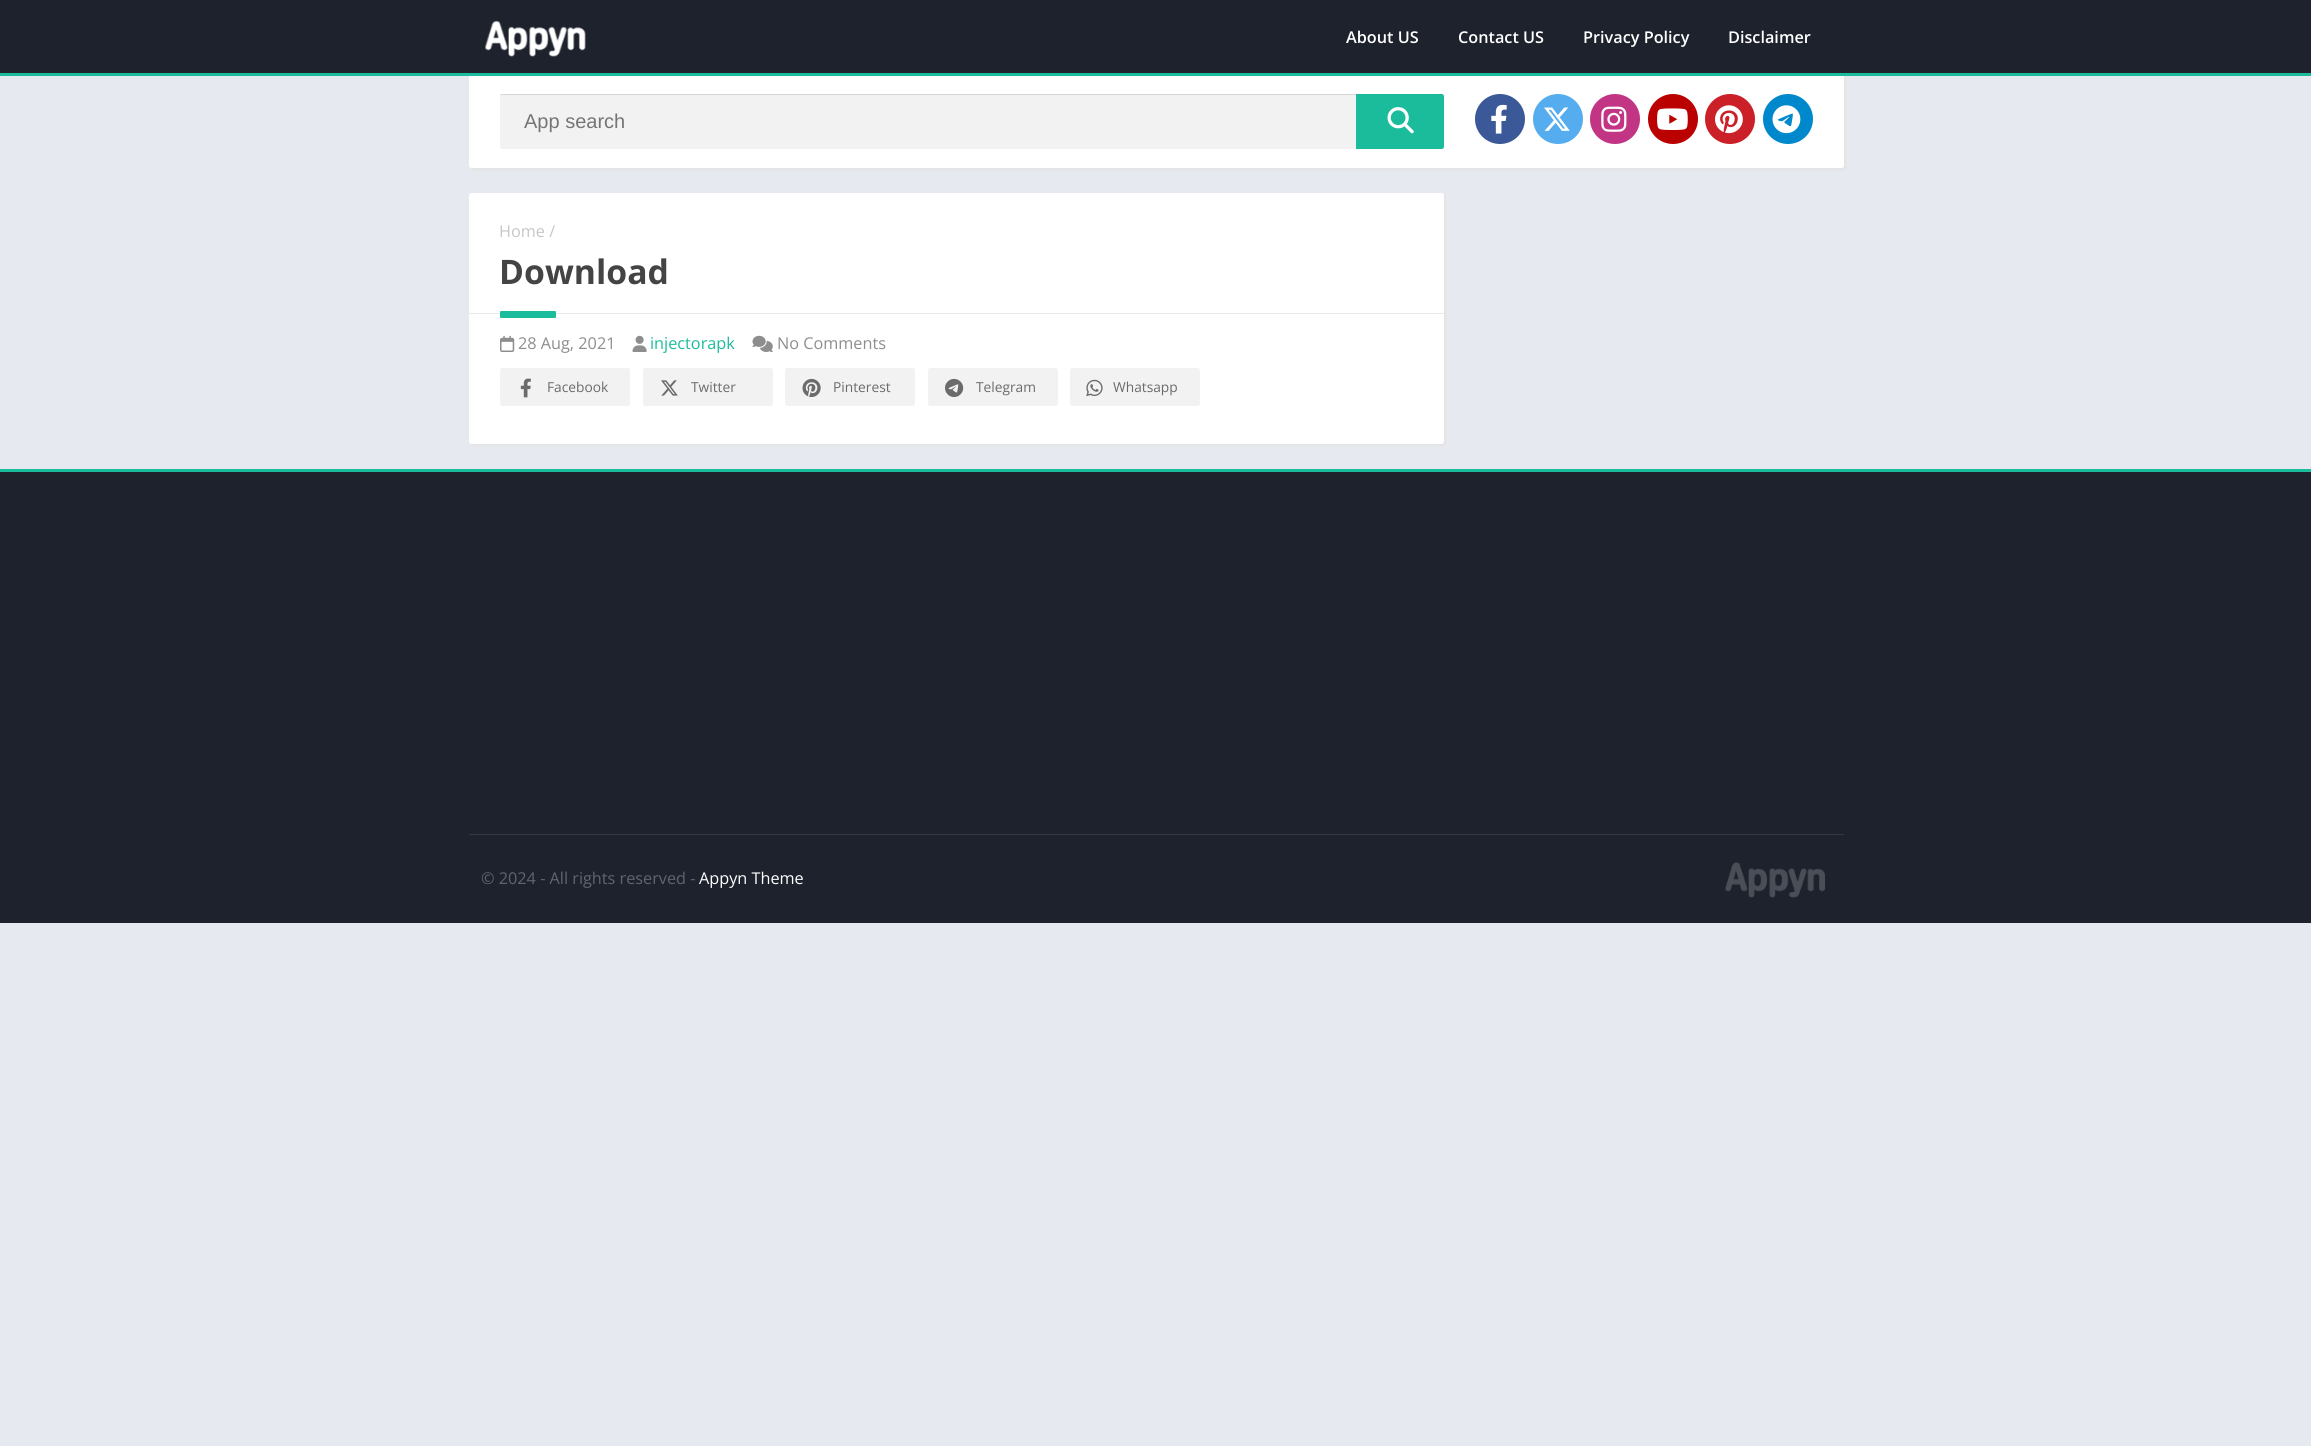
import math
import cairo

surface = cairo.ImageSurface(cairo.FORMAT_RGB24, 2311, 1446)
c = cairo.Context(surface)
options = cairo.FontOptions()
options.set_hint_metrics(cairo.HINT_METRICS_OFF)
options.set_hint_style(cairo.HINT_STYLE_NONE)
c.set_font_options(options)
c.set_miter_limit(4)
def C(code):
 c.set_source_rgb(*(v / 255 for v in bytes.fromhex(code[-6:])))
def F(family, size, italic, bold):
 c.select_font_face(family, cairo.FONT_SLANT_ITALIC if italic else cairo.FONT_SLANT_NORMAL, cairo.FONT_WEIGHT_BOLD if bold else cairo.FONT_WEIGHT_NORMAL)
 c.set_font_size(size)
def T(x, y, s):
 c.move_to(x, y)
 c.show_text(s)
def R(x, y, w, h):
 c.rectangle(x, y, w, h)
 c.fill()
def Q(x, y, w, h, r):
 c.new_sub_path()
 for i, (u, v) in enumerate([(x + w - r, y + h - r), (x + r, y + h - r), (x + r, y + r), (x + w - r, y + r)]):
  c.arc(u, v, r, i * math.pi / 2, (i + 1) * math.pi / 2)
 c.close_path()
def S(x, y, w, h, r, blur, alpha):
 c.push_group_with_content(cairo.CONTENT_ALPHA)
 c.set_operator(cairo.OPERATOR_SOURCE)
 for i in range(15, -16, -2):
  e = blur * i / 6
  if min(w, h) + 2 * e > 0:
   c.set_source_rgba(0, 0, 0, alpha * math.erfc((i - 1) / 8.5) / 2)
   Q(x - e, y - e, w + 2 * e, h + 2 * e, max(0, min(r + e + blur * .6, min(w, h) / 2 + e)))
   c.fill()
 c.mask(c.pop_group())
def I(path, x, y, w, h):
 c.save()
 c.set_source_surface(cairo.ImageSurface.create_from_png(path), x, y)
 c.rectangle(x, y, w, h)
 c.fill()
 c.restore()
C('e6e9ef')
c.paint()
C('1d222d')
R(0,0,2311,73)
C('e3e3e3')
S(471,78,1375,92,2.5,1,1)
C('ffffff')
Q(469,75,1375,93,2.5)
c.fill()
C('1bbc9b')
R(0,73,2311,3)
I('1.png',485,20,101,37)
F('Open Sans SemiBold',16.25,0,0)
C('ffffff')
T(1346,43,'About US')
T(1458,43,'Contact US')
T(1583,43,'Privacy Policy')
T(1728,43,'Disclaimer')
C('f2f2f2')
Q(500,94,944,55,2.5)
c.fill()
c.set_source_rgba(0,0,0,0.12)
c.new_path()
c.move_to(502,95)
c.line_to(1441,95)
c.curve_to(1443,95,1444,96,1444,98)
c.curve_to(1444,96,1444,94,1442,94)
c.line_to(502,94)
c.curve_to(500,94,500,96,500,98)
c.curve_to(500,96,501,95,502,95)
c.close_path()
c.fill()
F('Liberation Sans',20,0,0)
C('757575')
T(524,128,'App search')
C('1bbc9b')
c.new_path()
c.move_to(1356,94)
c.line_to(1441.5,94)
c.curve_to(1443,94,1444,95,1444,96.5)
c.line_to(1444,146.5)
c.curve_to(1444,148,1443,149,1441.5,149)
c.line_to(1356,149)
c.close_path()
c.fill()
I('2.png',1387,107,27,27)
C('3b5998')
c.arc(1500,119,25,0,2 * math.pi)
c.fill()
I('3.png',1491,104,16,30)
C('55acee')
c.arc(1558,119,25,0,2 * math.pi)
c.fill()
I('4.png',1544,107,26,24)
C('c13584')
c.arc(1615,119,25,0,2 * math.pi)
c.fill()
I('5.png',1601,106,26,26)
C('bb0000')
c.arc(1673,119,25,0,2 * math.pi)
c.fill()
I('6.png',1657,108,31,22)
C('cb2027')
c.arc(1730,119,25,0,2 * math.pi)
c.fill()
I('7.png',1715,105,28,29)
C('0088cc')
c.arc(1788,119,25,0,2 * math.pi)
c.fill()
I('8.png',1772,105,29,29)
C('e3e3e3')
S(471,195,975,251,2.5,1,1)
C('ffffff')
Q(469,193,975,251,2.5)
c.fill()
F('Open Sans',16.25,0,0)
C('c6c6c6')
T(499,237,'Home /')
F('Open Sans',33.75,0,1)
C('444444')
T(499,284,'Download')
C('eaeaea')
R(469,313,975,1)
C('1bbc9b')
Q(500,311,56,7,1)
c.fill()
I('9.png',500,335,15,17)
F('Open Sans',16.25,0,0)
C('8e8e8e')
T(518,349,'28 Aug, 2021')
I('10.png',632,335,15,17)
C('1bbc9b')
T(650,349,'injectorapk')
I('11.png',752,335,21,17)
C('8e8e8e')
T(777,349,'No Comments')
C('f2f2f2')
Q(500,368,130,38,2.5)
c.fill()
I('12.png',520,378,11,20)
F('Open Sans',13.75,0,0)
C('6b6b6b')
T(547,392,'Facebook')
C('f2f2f2')
Q(643,368,130,38,2.5)
c.fill()
I('13.png',661,380,17,16)
C('6b6b6b')
T(691,392,'Twitter')
C('f2f2f2')
Q(785,368,130,38,2.5)
c.fill()
I('14.png',802,378,19,20)
C('6b6b6b')
T(833,392,'Pinterest')
C('f2f2f2')
Q(928,368,130,38,2.5)
c.fill()
I('15.png',945,378,19,19)
C('6b6b6b')
T(976,392,'Telegram')
C('f2f2f2')
Q(1070,368,130,38,2.5)
c.fill()
I('16.png',1086,379,17,18)
C('6b6b6b')
T(1113,392,'Whatsapp')
C('1d222d')
R(0,472,2311,451)
C('1bbc9b')
R(0,469,2311,3)
C('343842')
R(469,834,1375,1)
F('Open Sans',16.25,0,0)
C('61646c')
T(481,884,'© 2024 - All rights reserved -')
C('ffffff')
T(699,884,'Appyn Theme')
I('17.png',1725,862,100,36)
surface.write_to_png('o.png')
